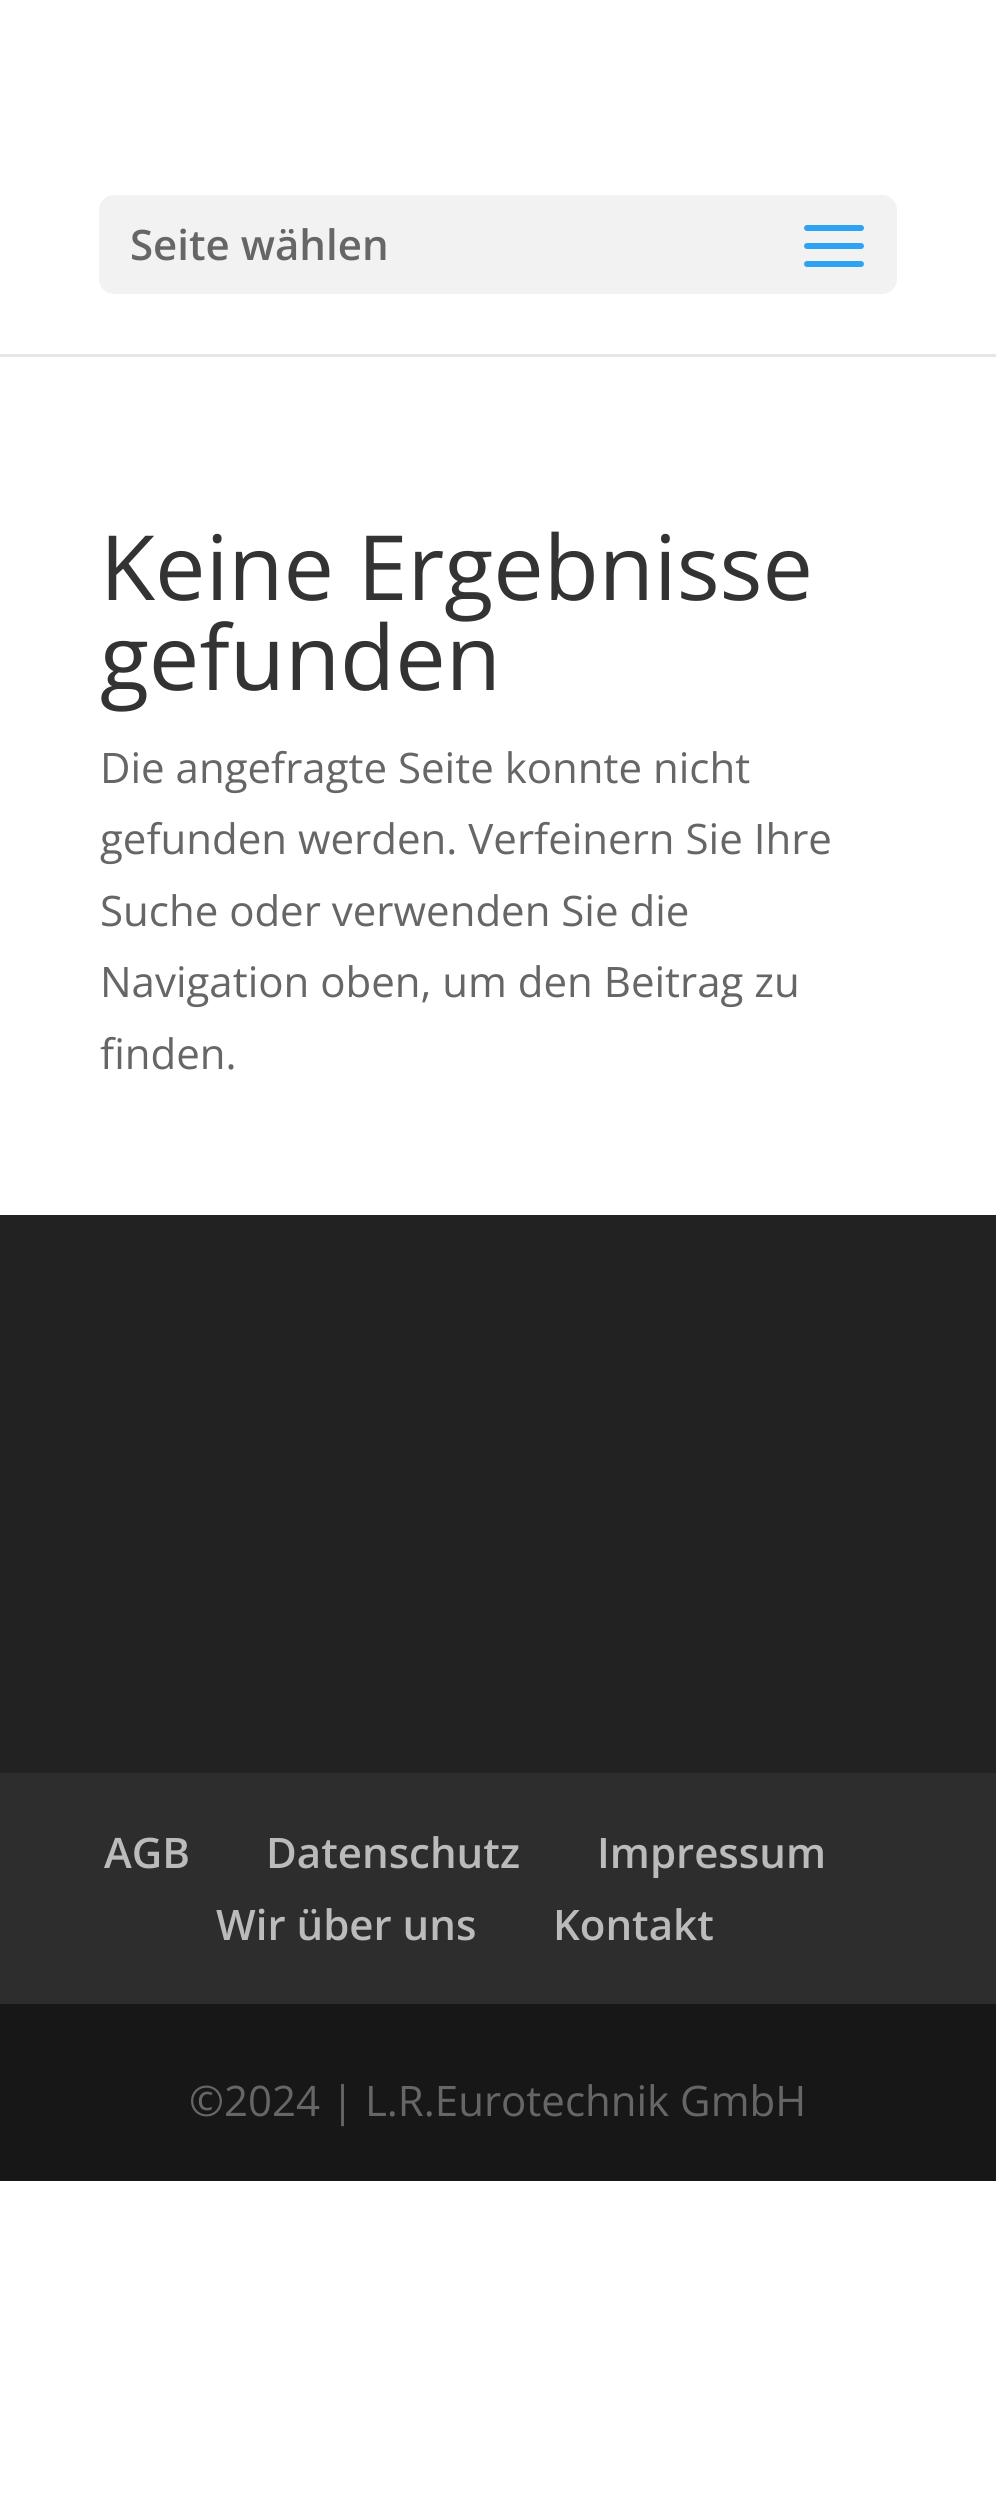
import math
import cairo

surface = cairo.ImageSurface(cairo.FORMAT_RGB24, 996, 2503)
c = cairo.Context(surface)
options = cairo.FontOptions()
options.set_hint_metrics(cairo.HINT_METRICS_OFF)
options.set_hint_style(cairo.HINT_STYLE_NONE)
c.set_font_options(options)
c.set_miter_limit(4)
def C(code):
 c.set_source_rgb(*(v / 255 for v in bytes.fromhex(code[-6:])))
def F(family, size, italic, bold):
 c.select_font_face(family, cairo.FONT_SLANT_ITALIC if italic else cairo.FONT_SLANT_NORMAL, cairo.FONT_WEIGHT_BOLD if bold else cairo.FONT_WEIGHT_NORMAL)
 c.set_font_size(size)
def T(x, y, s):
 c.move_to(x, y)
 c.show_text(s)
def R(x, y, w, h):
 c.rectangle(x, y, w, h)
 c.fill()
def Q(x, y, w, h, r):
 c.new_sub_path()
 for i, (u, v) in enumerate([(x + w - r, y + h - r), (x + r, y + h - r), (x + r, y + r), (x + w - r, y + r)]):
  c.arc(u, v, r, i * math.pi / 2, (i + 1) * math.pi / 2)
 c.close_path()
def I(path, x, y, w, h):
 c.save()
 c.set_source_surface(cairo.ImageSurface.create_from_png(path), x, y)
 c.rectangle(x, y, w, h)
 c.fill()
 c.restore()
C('ffffff')
c.paint()
C('e6e6e6')
R(0,354,996,3)
C('f2f2f2')
Q(99,195,798,99,15)
c.fill()
F('Open Sans SemiBold',42,0,0)
C('666666')
T(130,260,'Seite wählen')
I('1.png',804,225,60,42)
F('Open Sans',90,0,0)
C('333333')
T(100,600,'Keine Ergebnisse')
T(100,690,'gefunden')
F('Open Sans',42,0,0)
C('666666')
T(100,783,'Die angefragte Seite konnte nicht')
T(100,854,'gefunden werden. Verfeinern Sie Ihre')
T(100,926,'Suche oder verwenden Sie die')
T(100,997,'Navigation oben, um den Beitrag zu')
T(100,1069,'finden.')
C('222222')
R(0,1215,996,558)
C('2d2d2d')
R(0,1773,996,231)
F('Open Sans SemiBold',42,0,0)
C('bbbbbb')
T(104,1868,'AGB')
T(266,1868,'Datenschutz')
T(597,1868,'Impressum')
T(216,1940,'Wir über uns')
T(553,1940,'Kontakt')
C('171717')
R(0,2004,996,177)
F('Open Sans',42,0,0)
C('666666')
T(189,2116,'©2024 | L.R.Eurotechnik GmbH')
surface.write_to_png('o.png')
